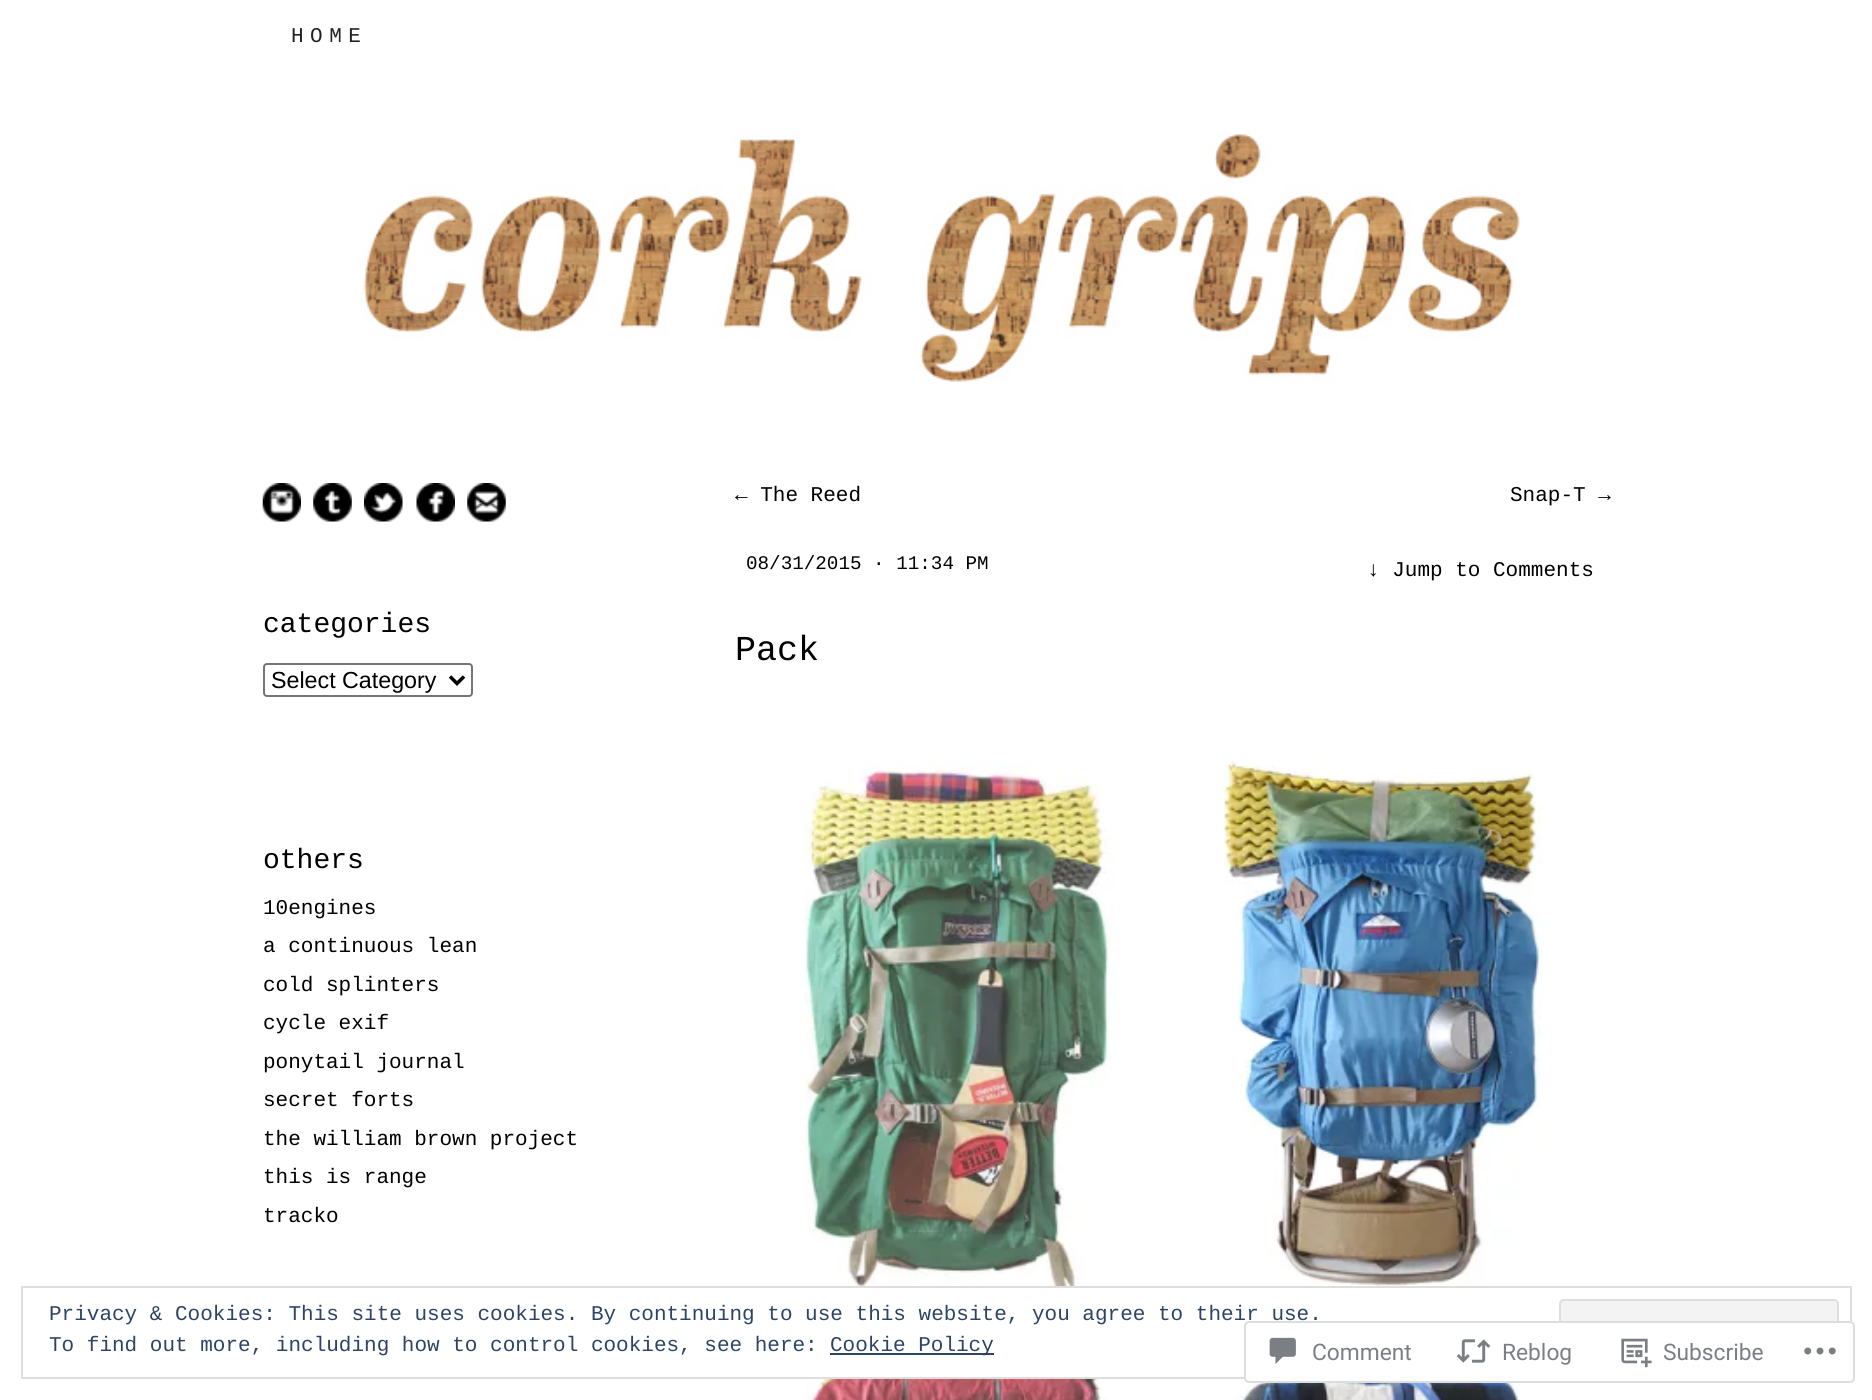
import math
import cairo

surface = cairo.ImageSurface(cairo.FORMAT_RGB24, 1872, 1400)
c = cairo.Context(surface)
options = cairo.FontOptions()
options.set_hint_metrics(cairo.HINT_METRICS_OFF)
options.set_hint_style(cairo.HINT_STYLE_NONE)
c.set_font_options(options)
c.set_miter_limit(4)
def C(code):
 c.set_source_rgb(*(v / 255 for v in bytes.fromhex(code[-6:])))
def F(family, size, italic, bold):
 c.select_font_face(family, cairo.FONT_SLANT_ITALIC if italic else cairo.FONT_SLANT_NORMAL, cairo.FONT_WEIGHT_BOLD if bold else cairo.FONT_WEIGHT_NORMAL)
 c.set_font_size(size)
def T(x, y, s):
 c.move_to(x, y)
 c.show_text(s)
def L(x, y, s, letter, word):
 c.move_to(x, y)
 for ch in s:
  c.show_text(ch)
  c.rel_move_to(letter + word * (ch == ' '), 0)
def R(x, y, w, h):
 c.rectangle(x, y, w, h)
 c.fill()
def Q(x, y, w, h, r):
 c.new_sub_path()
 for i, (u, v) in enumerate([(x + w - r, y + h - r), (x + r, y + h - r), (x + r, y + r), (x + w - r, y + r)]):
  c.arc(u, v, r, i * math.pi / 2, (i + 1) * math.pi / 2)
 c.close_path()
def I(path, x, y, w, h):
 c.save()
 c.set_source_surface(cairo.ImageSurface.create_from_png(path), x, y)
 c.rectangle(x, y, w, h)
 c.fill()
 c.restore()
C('ffffff')
c.paint()
F('Liberation Mono',21,0,0)
C('222222')
L(291,42,'HOME',6.5,0)
I('1.png',363,130,1157,252)
C('000000')
T(735,501,'← The Reed')
T(1510,501,'Snap-T →')
F('Liberation Mono',19.25,0,0)
T(746,569,'08/31/2015 · 11:34 PM')
F('Liberation Mono',21,0,0)
T(1367,576,'↓ Jump to Comments')
F('Liberation Mono',35,0,0)
T(735,660,'Pack')
I('2.png',804,761,741,525)
I('3.png',806,1379,714,21)
I('4.png',262,483,39,39)
I('5.png',313,483,39,39)
I('6.png',364,483,39,39)
I('7.png',416,483,39,39)
I('8.png',467,483,39,39)
F('Liberation Mono',28,0,0)
T(263,632,'categories')
Q(264,664,208,32,3)
C('767676')
c.stroke()
c.new_path()
c.move_to(450,676.5)
c.line_to(457,683.5)
c.line_to(464,676.5)
C('000000')
c.set_line_width(3.5)
c.stroke()
F('Liberation Sans',23.25,0,0)
T(271,688,'Select Category')
F('Liberation Mono',28,0,0)
T(263,868,'others')
F('Liberation Mono',21,0,0)
T(263,914,'10engines')
T(263,952,'a continuous lean')
T(263,991,'cold splinters')
T(263,1029,'cycle exif')
T(263,1068,'ponytail journal')
T(263,1106,'secret forts')
T(263,1145,'the william brown project')
T(263,1183,'this is range')
T(263,1222,'tracko')
c.rectangle(22,1287,1829,91)
C('dedede')
c.set_line_width(2)
c.stroke()
C('2e4467')
T(49,1320,'Privacy & Cookies: This site uses cookies. By continuing to use this website, you agree to their use.')
C('f3f3f3')
Q(1560,1300,278,66,4)
c.fill_preserve()
C('dedede')
c.stroke()
C('2e4467')
T(49,1351,'To find out more, including how to control cookies, see here:')
R(830,1353,164,2)
T(830,1351,'Cookie Policy')
c.set_source_rgba(1,1,1,0.98)
Q(1244,1321,611,62,5)
c.fill()
Q(1245,1322,609,60,4)
c.set_source_rgba(0.863,0.863,0.871,0.98)
c.stroke()
I('9.png',1269,1337,27,27)
F('Roboto',22.75,0,0)
C('7b7f85')
T(1312,1360,'Comment')
I('10.png',1456,1339,35,24)
T(1502,1360,'Reblog')
I('11.png',1621,1338,31,30)
T(1663,1360,'Subscribe')
I('12.png',1804,1347,32,8)
surface.write_to_png('o.png')
